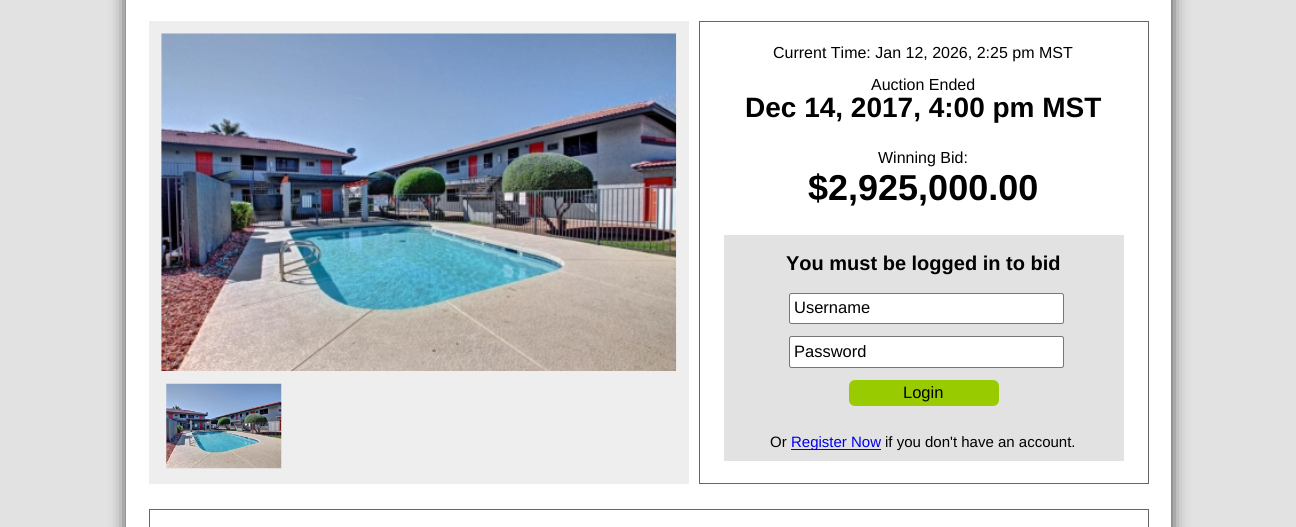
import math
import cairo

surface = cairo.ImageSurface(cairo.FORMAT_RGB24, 1296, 527)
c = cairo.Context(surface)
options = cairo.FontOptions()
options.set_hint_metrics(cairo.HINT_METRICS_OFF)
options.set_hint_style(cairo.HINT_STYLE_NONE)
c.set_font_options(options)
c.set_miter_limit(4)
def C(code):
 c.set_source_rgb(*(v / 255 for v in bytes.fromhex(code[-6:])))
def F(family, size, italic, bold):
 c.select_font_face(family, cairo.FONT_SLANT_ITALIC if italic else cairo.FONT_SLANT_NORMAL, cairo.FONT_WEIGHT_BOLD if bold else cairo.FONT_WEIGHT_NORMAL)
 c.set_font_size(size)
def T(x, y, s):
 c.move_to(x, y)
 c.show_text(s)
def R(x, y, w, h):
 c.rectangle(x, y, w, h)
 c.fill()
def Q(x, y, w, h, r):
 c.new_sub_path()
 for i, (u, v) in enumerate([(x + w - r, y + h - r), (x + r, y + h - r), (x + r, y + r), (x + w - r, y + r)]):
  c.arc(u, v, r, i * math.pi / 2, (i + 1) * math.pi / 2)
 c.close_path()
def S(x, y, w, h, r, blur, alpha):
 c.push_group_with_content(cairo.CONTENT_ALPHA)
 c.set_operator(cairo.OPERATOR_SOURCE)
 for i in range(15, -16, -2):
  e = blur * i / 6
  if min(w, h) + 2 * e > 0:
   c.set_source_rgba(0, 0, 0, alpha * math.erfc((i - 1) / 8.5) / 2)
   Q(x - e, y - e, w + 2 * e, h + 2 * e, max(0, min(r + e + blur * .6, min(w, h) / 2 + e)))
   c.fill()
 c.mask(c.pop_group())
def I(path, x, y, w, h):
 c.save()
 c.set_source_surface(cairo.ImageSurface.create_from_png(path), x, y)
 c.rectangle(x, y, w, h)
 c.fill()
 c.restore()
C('e2e2e2')
c.paint()
C('000000')
S(130,-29,1018,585,0,9.5,1)
S(150,-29,1018,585,0,9.5,1)
C('ffffff')
R(126,0,1045,527)
C('eeeeee')
R(149,21,540,463)
I('1.png',161,33,516,338)
I('2.png',166,383,116,86)
c.rectangle(699.5,21.5,449,462)
C('666666')
c.set_line_width(1)
c.stroke()
F('Liberation Sans',16,0,0)
C('000000')
T(773,58,'Current Time: Jan 12, 2026, 2:25 pm MST')
T(871,90,'Auction Ended')
F('Liberation Sans',28,0,1)
T(745,117,'Dec 14, 2017, 4:00 pm MST')
F('Liberation Sans',16,0,0)
T(878,163,'Winning Bid:')
F('Liberation Sans',36,0,1)
T(808,200,'$2,925,000.00')
C('e2e2e2')
R(724,235,400,226)
F('Liberation Sans',20,0,1)
C('000000')
T(786,270,'You must be logged in to bid')
C('ffffff')
Q(789.5,293.5,274,30,2)
c.fill_preserve()
C('767676')
c.stroke()
F('Liberation Sans',16.5,0,0)
C('000000')
T(794,313,'Username')
C('ffffff')
Q(789.5,336.5,274,31,2)
c.fill_preserve()
C('767676')
c.stroke()
C('000000')
T(794,357,'Password')
C('99cc00')
Q(849,380,150,26,6)
c.fill()
C('000000')
T(903,398,'Login')
F('Liberation Sans',15,0,0)
T(770,447,'Or')
C('0000ee')
R(791,449,90,1)
T(791,447,'Register Now')
C('000000')
T(885,447,'if you don\'t have an account.')
c.rectangle(149.5,509.5,999,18)
C('666666')
c.stroke()
surface.write_to_png('o.png')
